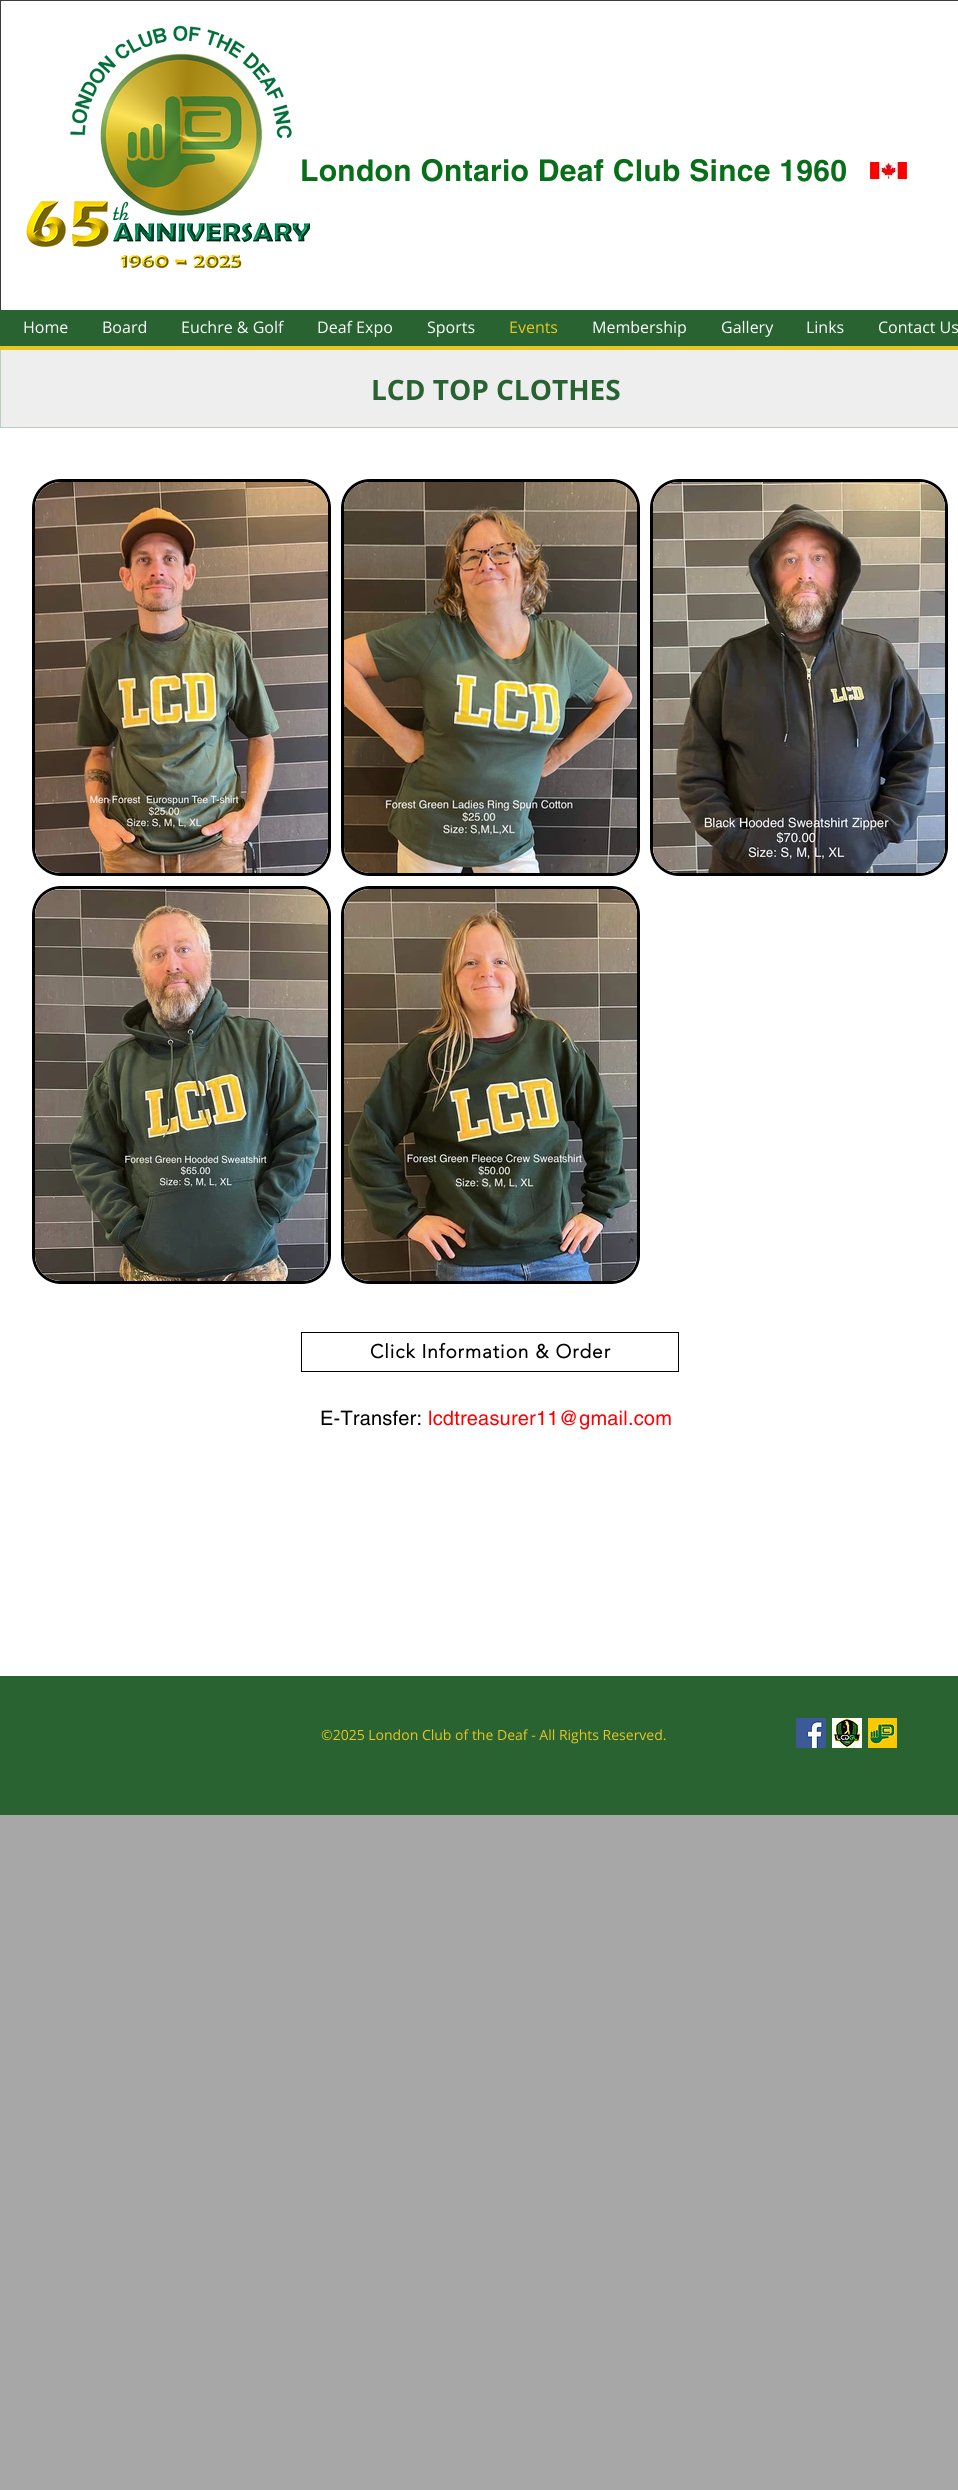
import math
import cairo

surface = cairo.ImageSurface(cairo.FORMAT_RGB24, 958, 2490)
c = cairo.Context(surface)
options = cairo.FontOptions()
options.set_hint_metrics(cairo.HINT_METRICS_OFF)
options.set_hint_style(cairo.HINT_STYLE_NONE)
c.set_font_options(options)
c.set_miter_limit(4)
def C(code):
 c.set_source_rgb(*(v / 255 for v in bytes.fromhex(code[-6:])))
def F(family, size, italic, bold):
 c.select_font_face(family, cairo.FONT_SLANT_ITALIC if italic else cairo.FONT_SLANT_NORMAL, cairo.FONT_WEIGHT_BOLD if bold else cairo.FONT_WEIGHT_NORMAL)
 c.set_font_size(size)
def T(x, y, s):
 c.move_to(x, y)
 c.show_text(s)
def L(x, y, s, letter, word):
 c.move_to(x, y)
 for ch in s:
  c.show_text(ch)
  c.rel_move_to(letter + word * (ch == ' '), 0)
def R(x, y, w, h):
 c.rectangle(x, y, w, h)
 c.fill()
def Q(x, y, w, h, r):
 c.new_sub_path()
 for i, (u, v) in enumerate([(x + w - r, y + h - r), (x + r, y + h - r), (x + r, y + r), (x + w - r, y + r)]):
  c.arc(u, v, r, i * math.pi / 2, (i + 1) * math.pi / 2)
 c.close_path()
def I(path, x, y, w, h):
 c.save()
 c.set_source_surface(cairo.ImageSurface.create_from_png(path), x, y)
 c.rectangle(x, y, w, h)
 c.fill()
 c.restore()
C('a7a7a7')
c.paint()
C('3c3c3c')
R(0,0,958,310)
C('ffffff')
R(1,1,957,309)
F('helvetica',30,0,1)
C('086e19')
L(300,181,'London Ontario Deaf Club Since 1960',.3,0)
I('1.png',26,25,284,244)
I('2.png',870,162,37,17)
C('286331')
R(0,310,958,36)
F('Open Sans',16,0,0)
C('ffffff')
T(23,333,'Home')
T(102,333,'Board')
T(181,333,'Euchre & Golf')
T(317,333,'Deaf Expo')
T(427,333,'Sports')
C('e8c620')
T(509,333,'Events')
C('ffffff')
T(592,333,'Membership')
T(721,333,'Gallery')
T(806,333,'Links')
T(878,333,'Contact Us')
C('eeeeee')
R(1,350,957,77)
c.rectangle(.5,346.5,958,81)
C('b7cfbb')
c.set_line_width(1)
c.stroke()
C('e8c620')
R(0,346,958,4)
F('Open Sans',28,0,1)
C('286331')
T(371,400,'LCD TOP CLOTHES')
C('ffffff')
R(0,428,958,1248)
Q(33.5,480.5,296,394,27.5)
C('000000')
c.set_line_width(3)
c.stroke()
C('e8e6e6')
Q(35,482,293,391,26)
c.fill()
I('3.png',35,482,293,391)
Q(342.5,480.5,296,394,27.5)
C('000000')
c.stroke()
I('4.png',344,482,293,391)
Q(651.5,480.5,295,394,27.5)
c.stroke()
C('e8e6e6')
Q(653,482,292,391,26)
c.fill()
I('5.png',653,482,292,391)
Q(33.5,887.5,296,395,27.5)
C('000000')
c.stroke()
C('e8e6e6')
Q(35,889,293,392,26)
c.fill()
I('6.png',35,889,293,392)
Q(342.5,887.5,296,395,27.5)
C('000000')
c.stroke()
C('e8e6e6')
Q(344,889,293,392,26)
c.fill()
I('7.png',344,889,293,392)
c.rectangle(301.5,1332.5,377,39)
C('000000')
c.set_line_width(1)
c.stroke()
F('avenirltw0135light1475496',19,0,1)
L(370,1358,'Click Information & Order',.95,0)
F('helvetica',20,0,0)
L(320,1425,'E-Transfer:',.2,0)
C('ff0000')
L(428,1425,'lcdtreasurer11@gmail.com',.2,0)
C('286331')
R(0,1676,958,139)
F('Open Sans',14,0,0)
C('e8c620')
T(321,1740,'©2025 London Club of the Deaf - All Rights Reserved.')
I('8.png',796,1718,30,30)
I('9.png',832,1718,30,30)
I('10.png',868,1718,29,30)
surface.write_to_png('o.png')
